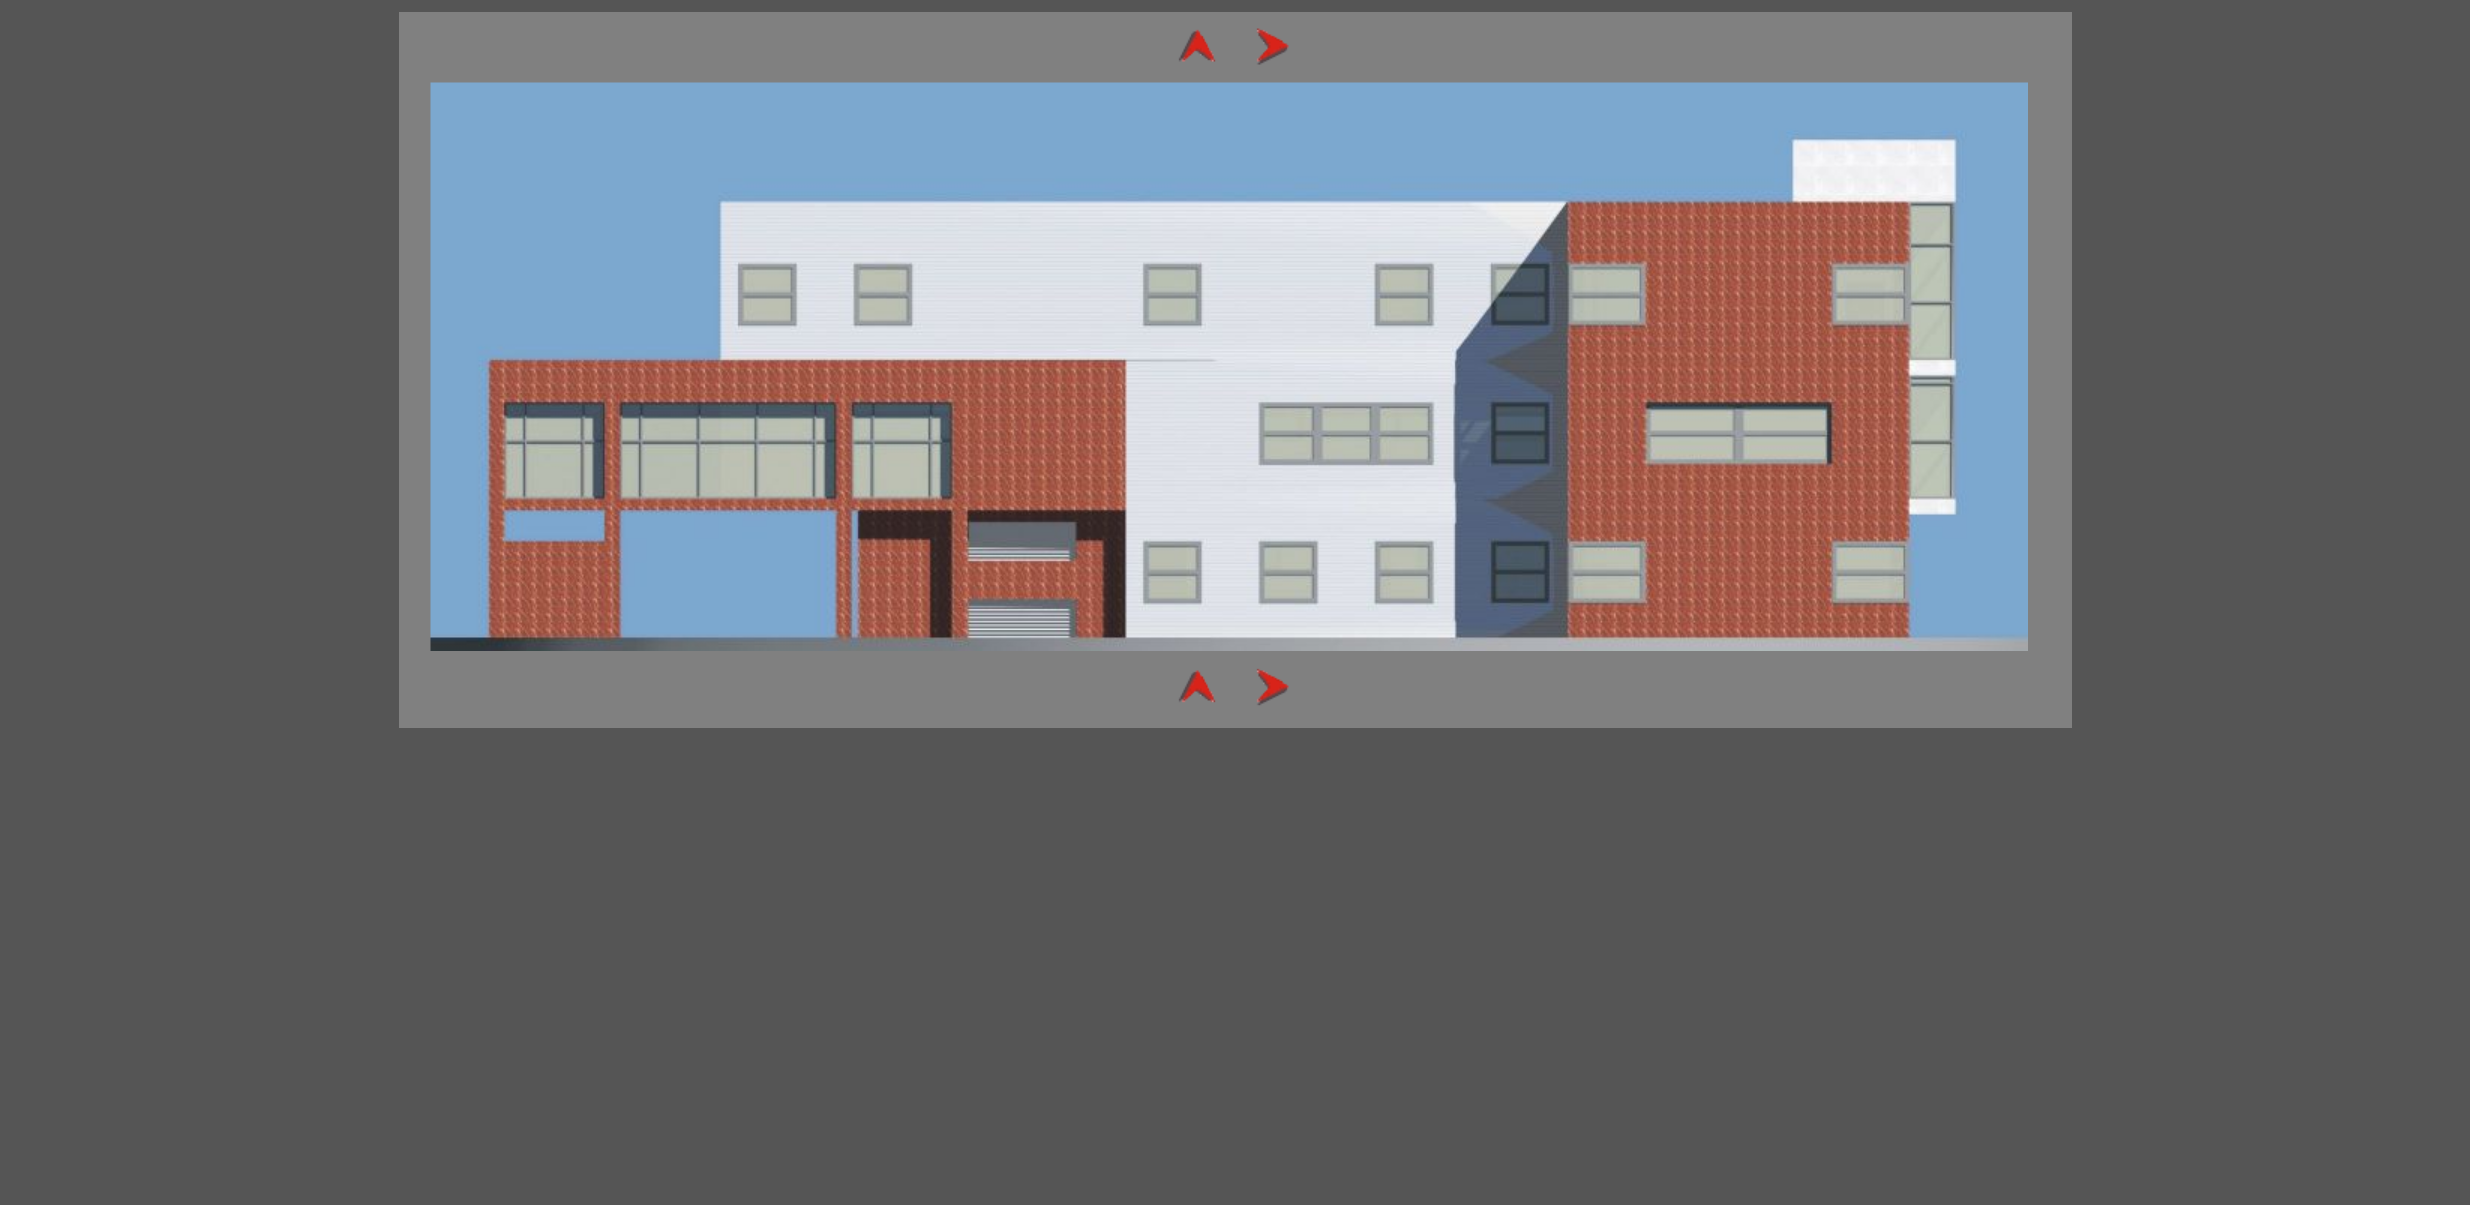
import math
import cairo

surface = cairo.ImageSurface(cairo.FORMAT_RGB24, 2470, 1205)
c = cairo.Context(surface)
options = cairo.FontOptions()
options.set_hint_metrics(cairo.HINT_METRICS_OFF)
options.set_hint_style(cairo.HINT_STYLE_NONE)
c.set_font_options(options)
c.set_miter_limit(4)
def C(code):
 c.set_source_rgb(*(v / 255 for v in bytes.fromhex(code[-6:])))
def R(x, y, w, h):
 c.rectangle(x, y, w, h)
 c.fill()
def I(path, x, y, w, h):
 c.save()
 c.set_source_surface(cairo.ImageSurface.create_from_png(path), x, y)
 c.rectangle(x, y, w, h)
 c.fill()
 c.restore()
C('555555')
c.paint()
C('808080')
R(399,12,1673,716)
I('1.png',1178,29,38,33)
I('2.png',1256,28,33,37)
I('3.png',430,82,1598,569)
I('4.png',1178,670,38,33)
I('5.png',1256,668,33,38)
surface.write_to_png('o.png')
